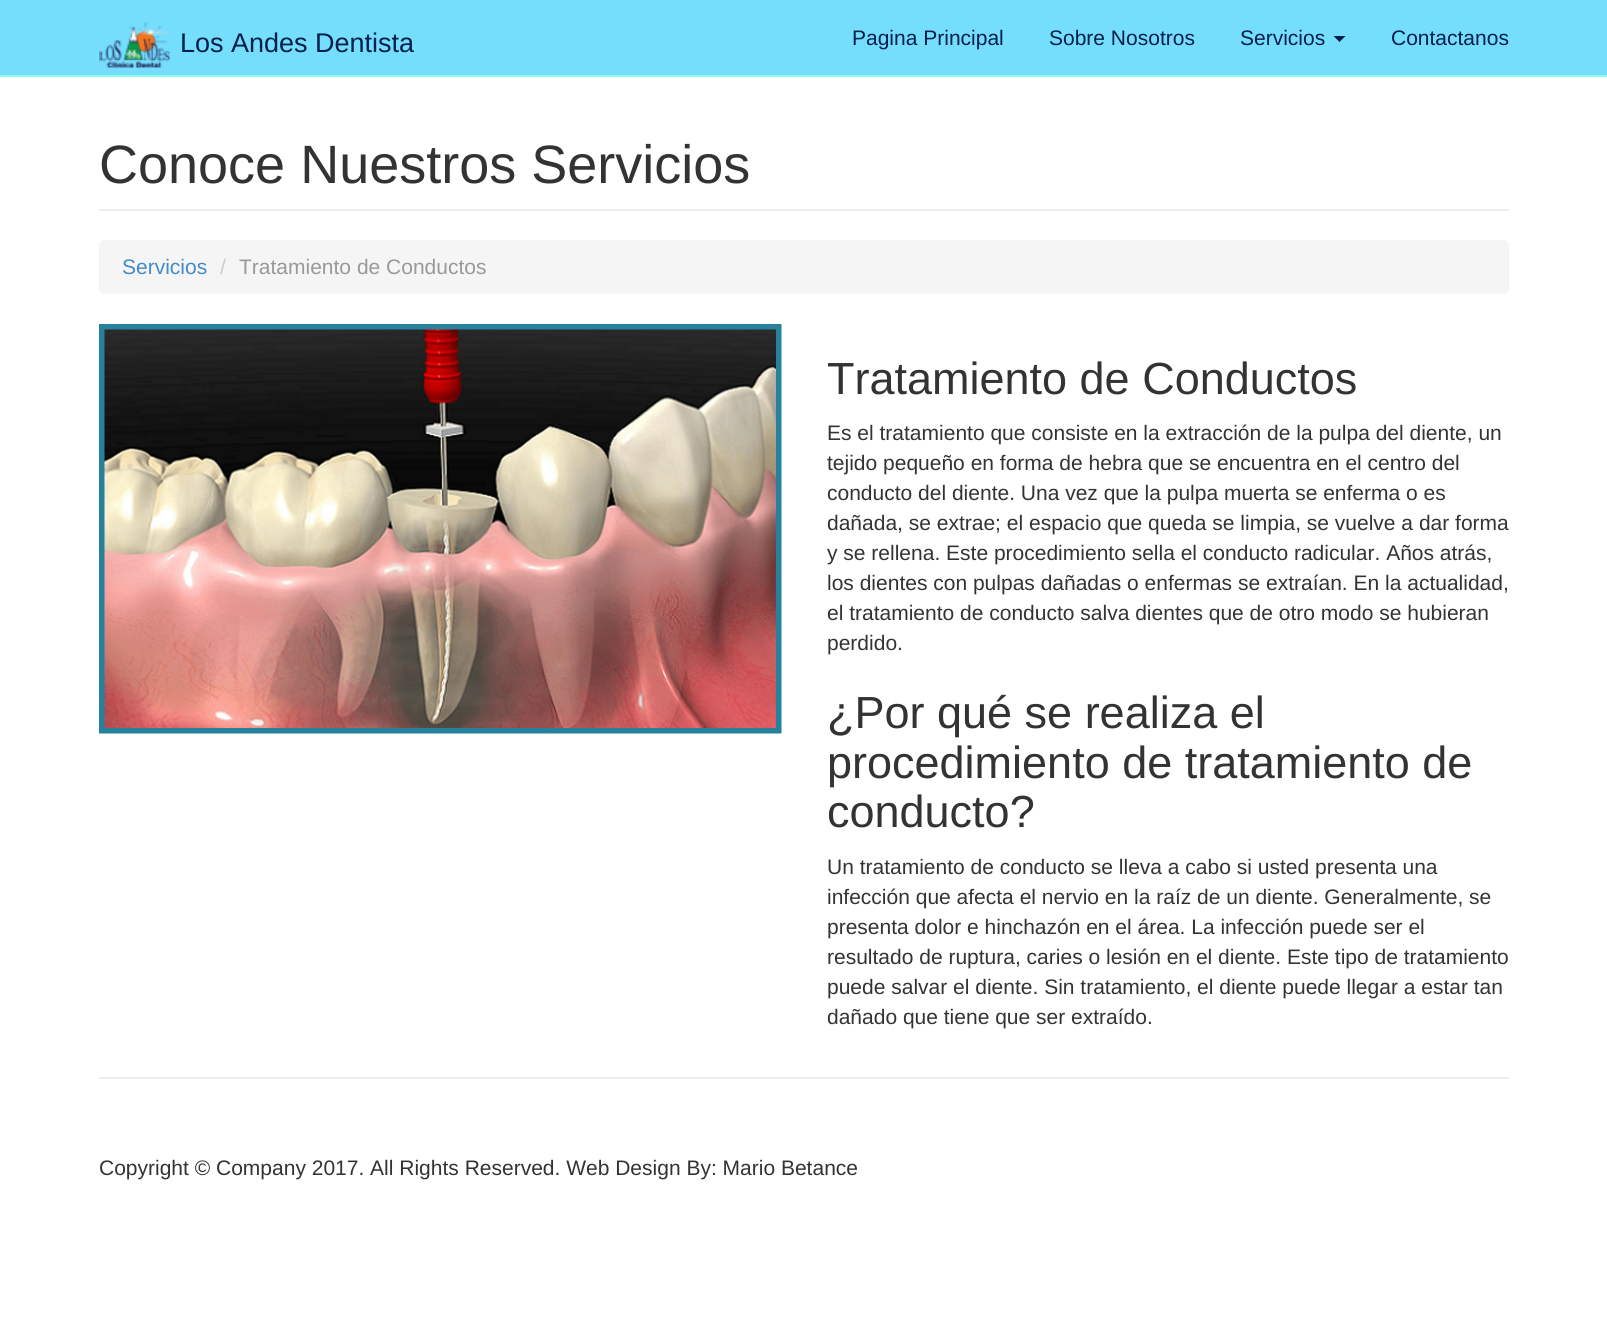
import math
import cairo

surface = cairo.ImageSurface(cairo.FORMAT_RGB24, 1607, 1337)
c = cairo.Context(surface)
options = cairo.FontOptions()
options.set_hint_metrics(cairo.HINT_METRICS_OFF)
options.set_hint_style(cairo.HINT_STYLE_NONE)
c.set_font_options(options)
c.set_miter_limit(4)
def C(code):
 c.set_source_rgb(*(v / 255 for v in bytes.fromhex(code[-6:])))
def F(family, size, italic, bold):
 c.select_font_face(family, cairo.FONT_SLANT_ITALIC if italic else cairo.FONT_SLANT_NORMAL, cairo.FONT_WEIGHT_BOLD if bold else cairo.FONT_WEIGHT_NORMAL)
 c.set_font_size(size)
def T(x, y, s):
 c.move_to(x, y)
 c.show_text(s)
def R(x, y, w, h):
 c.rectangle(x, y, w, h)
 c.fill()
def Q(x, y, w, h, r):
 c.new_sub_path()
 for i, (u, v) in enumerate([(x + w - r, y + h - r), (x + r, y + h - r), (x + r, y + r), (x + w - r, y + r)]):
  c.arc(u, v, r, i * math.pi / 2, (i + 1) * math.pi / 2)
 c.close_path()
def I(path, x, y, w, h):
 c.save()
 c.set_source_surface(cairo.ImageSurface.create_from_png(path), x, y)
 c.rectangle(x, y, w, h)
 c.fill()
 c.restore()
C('ffffff')
c.paint()
C('75defd')
R(0,0,1607,75)
C('90ffe1')
R(0,75,1607,2)
I('1.png',99,22,73,46)
F('Liberation Sans',27,0,0)
C('001f4a')
T(180,52,'Los Andes Dentista')
F('Liberation Sans',21,0,0)
T(852,45,'Pagina Principal')
T(1049,45,'Sobre Nosotros')
T(1240,45,'Servicios')
c.new_path()
c.move_to(1333.5,36)
c.line_to(1345.5,36)
c.line_to(1339.5,42)
c.close_path()
c.fill()
T(1391,45,'Contactanos')
C('eeeeee')
R(99,209,1410,2)
F('Liberation Sans',54,0,0)
C('333333')
T(99,183,'Conoce Nuestros Servicios')
C('f5f5f5')
Q(99,240,1410,54,6)
c.fill()
F('Liberation Sans',21,0,0)
C('428bca')
T(122,274,'Servicios')
C('cccccc')
T(220,274,'/')
C('999999')
T(239,274,'Tratamiento de Conductos')
I('2.png',99,324,683,410)
F('Liberation Sans',45,0,0)
C('333333')
T(827,394,'Tratamiento de Conductos')
F('Liberation Sans',21,0,0)
T(827,440,'Es el tratamiento que consiste en la extracción de la pulpa del diente, un')
T(827,470,'tejido pequeño en forma de hebra que se encuentra en el centro del')
T(827,500,'conducto del diente. Una vez que la pulpa muerta se enferma o es')
T(827,530,'dañada, se extrae; el espacio que queda se limpia, se vuelve a dar forma')
T(827,560,'y se rellena. Este procedimiento sella el conducto radicular. Años atrás,')
T(827,590,'los dientes con pulpas dañadas o enfermas se extraían. En la actualidad,')
T(827,620,'el tratamiento de conducto salva dientes que de otro modo se hubieran')
T(827,650,'perdido.')
F('Liberation Sans',45,0,0)
T(827,728,'¿Por qué se realiza el')
T(827,778,'procedimiento de tratamiento de')
T(827,827,'conducto?')
F('Liberation Sans',21,0,0)
T(827,874,'Un tratamiento de conducto se lleva a cabo si usted presenta una')
T(827,904,'infección que afecta el nervio en la raíz de un diente. Generalmente, se')
T(827,934,'presenta dolor e hinchazón en el área. La infección puede ser el')
T(827,964,'resultado de ruptura, caries o lesión en el diente. Este tipo de tratamiento')
T(827,994,'puede salvar el diente. Sin tratamiento, el diente puede llegar a estar tan')
T(827,1024,'dañado que tiene que ser extraído.')
C('eeeeee')
R(99,1077,1410,2)
C('333333')
T(99,1175,'Copyright © Company 2017. All Rights Reserved. Web Design By: Mario Betance')
surface.write_to_png('o.png')
